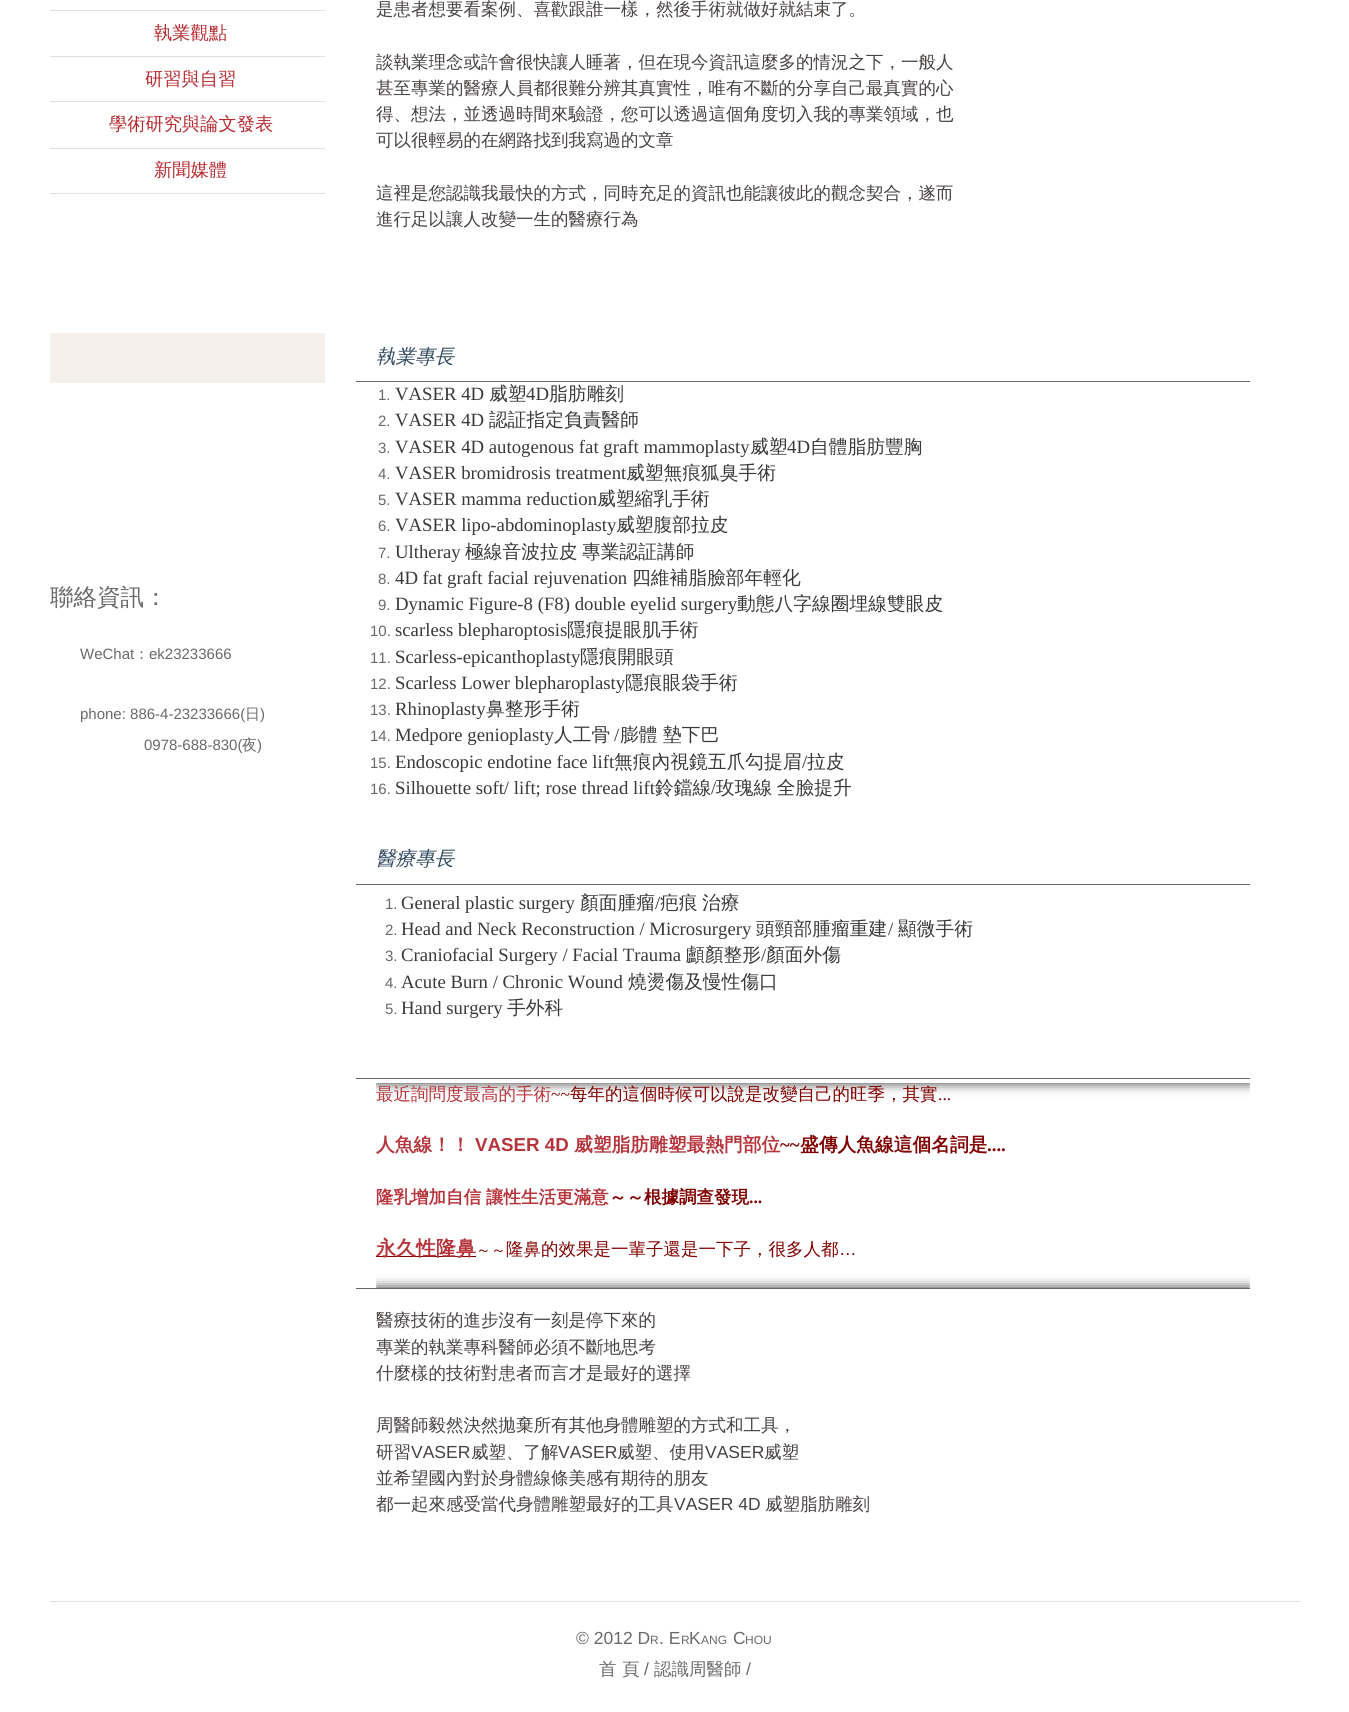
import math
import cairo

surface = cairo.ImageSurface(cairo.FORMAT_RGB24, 1349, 1712)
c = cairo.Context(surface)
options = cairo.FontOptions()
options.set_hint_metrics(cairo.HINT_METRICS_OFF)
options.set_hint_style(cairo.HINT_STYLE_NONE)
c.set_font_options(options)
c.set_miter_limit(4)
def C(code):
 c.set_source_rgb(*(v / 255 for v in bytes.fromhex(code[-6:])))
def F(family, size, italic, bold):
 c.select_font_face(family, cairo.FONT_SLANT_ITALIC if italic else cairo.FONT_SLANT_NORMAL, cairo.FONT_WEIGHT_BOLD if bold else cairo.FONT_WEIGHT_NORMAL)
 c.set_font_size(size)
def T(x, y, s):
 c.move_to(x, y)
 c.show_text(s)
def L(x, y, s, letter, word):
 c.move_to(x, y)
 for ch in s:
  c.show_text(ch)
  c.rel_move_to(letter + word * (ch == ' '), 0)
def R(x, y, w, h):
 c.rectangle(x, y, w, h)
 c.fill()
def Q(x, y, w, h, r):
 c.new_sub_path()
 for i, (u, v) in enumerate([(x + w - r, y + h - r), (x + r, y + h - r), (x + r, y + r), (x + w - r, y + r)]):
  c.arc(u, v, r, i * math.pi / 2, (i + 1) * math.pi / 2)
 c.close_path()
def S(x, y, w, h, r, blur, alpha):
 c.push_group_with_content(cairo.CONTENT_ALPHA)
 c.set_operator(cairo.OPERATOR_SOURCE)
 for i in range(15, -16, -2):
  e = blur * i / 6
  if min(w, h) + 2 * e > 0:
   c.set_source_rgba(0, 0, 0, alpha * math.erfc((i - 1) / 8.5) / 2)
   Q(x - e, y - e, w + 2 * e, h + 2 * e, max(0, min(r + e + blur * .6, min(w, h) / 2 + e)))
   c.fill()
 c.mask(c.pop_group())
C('ffffff')
c.paint()
C('e2dfe2')
R(50,10,275,1)
R(50,56,275,1)
F('WenQuanYi Zen Hei Medium',18.25,0,0)
C('b62a30')
T(154,39,'執業觀點')
C('e2dfe2')
R(50,101,275,1)
C('b62a30')
T(145,85,'研習與自習')
C('e2dfe2')
R(50,148,275,1)
C('b62a30')
T(109,130,'學術研究與論文發表')
C('e2dfe2')
R(50,193,275,1)
C('b62a30')
T(154,176,'新聞媒體')
C('f6f0ec')
R(50,333,275,50)
F('WenQuanYi Zen Hei Medium',23.5,0,0)
C('696969')
T(50,605,'聯絡資訊：')
F('Liberation Sans',15,0,0)
T(80,659,'WeChat')
F('WenQuanYi Zen Hei Medium',15,0,0)
T(134,659,'：')
F('Liberation Sans',15,0,0)
T(149,659,'ek23233666')
T(80,719,'phone: 886-4-23233666(')
F('WenQuanYi Zen Hei Medium',15,0,0)
T(245,719,'日')
F('Liberation Sans',15,0,0)
T(260,719,')')
T(144,750,'0978-688-830(')
F('WenQuanYi Zen Hei Medium',15,0,0)
T(242,750,'夜')
F('Liberation Sans',15,0,0)
T(257,750,')')
F('WenQuanYi Zen Hei Medium',17.5,0,0)
C('484241')
T(376,15,'是患者想要看案例、喜歡跟誰一樣，然後手術就做好就結束了。')
T(376,68,'談執業理念或許會很快讓人睡著，但在現今資訊這麼多的情況之下，一般人')
T(376,94,'甚至專業的醫療人員都很難分辨其真實性，唯有不斷的分享自己最真實的心')
T(376,120,'得、想法，並透過時間來驗證，您可以透過這個角度切入我的專業領域，也')
T(376,146,'可以很輕易的在網路找到我寫過的文章')
T(376,199,'這裡是您認識我最快的方式，同時充足的資訊也能讓彼此的觀念契合，遂而')
T(376,225,'進行足以讓人改變一生的醫療行為')
C('676767')
R(356,381,894,1)
F('WenQuanYi Zen Hei Medium',19.5,1,0)
C('2f485f')
T(376,363,'執業專長')
F('Liberation Sans',15,0,0)
C('696969')
T(378,400,'1.')
F('Liberation Serif',18.75,0,0)
C('393939')
T(395,400,'VASER 4D')
F('WenQuanYi Zen Hei Medium',18.75,0,0)
T(489,400,'威塑')
F('Liberation Serif',18.75,0,0)
T(526,400,'4D')
F('WenQuanYi Zen Hei Medium',18.75,0,0)
T(549,400,'脂肪雕刻')
F('Liberation Sans',15,0,0)
C('696969')
T(378,426,'2.')
F('Liberation Serif',18.75,0,0)
C('393939')
T(395,426,'VASER 4D')
F('WenQuanYi Zen Hei Medium',18.75,0,0)
T(489,426,'認証指定負責醫師')
F('Liberation Sans',15,0,0)
C('696969')
T(378,453,'3.')
F('Liberation Serif',18.75,0,0)
C('393939')
T(395,453,'VASER 4D autogenous fat graft mammoplasty')
F('WenQuanYi Zen Hei Medium',18.75,0,0)
T(750,453,'威塑')
F('Liberation Serif',18.75,0,0)
T(787,453,'4D')
F('WenQuanYi Zen Hei Medium',18.75,0,0)
T(810,453,'自體脂肪豐胸')
F('Liberation Sans',15,0,0)
C('696969')
T(378,479,'4.')
F('Liberation Serif',18.75,0,0)
C('393939')
T(395,479,'VASER bromidrosis treatment')
F('WenQuanYi Zen Hei Medium',18.75,0,0)
T(626,479,'威塑無痕狐臭手術')
F('Liberation Sans',15,0,0)
C('696969')
T(378,505,'5.')
F('Liberation Serif',18.75,0,0)
C('393939')
T(395,505,'VASER mamma reduction')
F('WenQuanYi Zen Hei Medium',18.75,0,0)
T(597,505,'威塑縮乳手術')
F('Liberation Sans',15,0,0)
C('696969')
T(378,531,'6.')
F('Liberation Serif',18.75,0,0)
C('393939')
T(395,531,'VASER lipo-abdominoplasty')
F('WenQuanYi Zen Hei Medium',18.75,0,0)
T(616,531,'威塑腹部拉皮')
F('Liberation Sans',15,0,0)
C('696969')
T(378,558,'7.')
F('Liberation Serif',18.75,0,0)
C('393939')
T(395,558,'Ultheray')
F('WenQuanYi Zen Hei Medium',18.75,0,0)
L(465,558,'極線音波拉皮 專業認証講師',0,-1)
F('Liberation Sans',15,0,0)
C('696969')
T(378,584,'8.')
F('Liberation Serif',18.75,0,0)
C('393939')
T(395,584,'4D fat graft facial rejuvenation')
F('WenQuanYi Zen Hei Medium',18.75,0,0)
T(632,584,'四維補脂臉部年輕化')
F('Liberation Sans',15,0,0)
C('696969')
T(378,610,'9.')
F('Liberation Serif',18.75,0,0)
C('393939')
T(395,610,'Dynamic Figure-8 (F8) double eyelid surgery')
F('WenQuanYi Zen Hei Medium',18.75,0,0)
T(737,610,'動態八字線圈埋線雙眼皮')
F('Liberation Sans',15,0,0)
C('696969')
T(370,636,'10.')
F('Liberation Serif',18.75,0,0)
C('393939')
T(395,636,'scarless blepharoptosis')
F('WenQuanYi Zen Hei Medium',18.75,0,0)
T(567,636,'隱痕提眼肌手術')
F('Liberation Sans',15,0,0)
C('696969')
T(370,663,'11.')
F('Liberation Serif',18.75,0,0)
C('393939')
T(395,663,'Scarless-epicanthoplasty')
F('WenQuanYi Zen Hei Medium',18.75,0,0)
T(580,663,'隱痕開眼頭')
F('Liberation Sans',15,0,0)
C('696969')
T(370,689,'12.')
F('Liberation Serif',18.75,0,0)
C('393939')
T(395,689,'Scarless Lower blepharoplasty')
F('WenQuanYi Zen Hei Medium',18.75,0,0)
T(625,689,'隱痕眼袋手術')
F('Liberation Sans',15,0,0)
C('696969')
T(370,715,'13.')
F('Liberation Serif',18.75,0,0)
C('393939')
T(395,715,'Rhinoplasty')
F('WenQuanYi Zen Hei Medium',18.75,0,0)
T(486,715,'鼻整形手術')
F('Liberation Sans',15,0,0)
C('696969')
T(370,741,'14.')
F('Liberation Serif',18.75,0,0)
C('393939')
T(395,741,'Medpore genioplasty')
F('WenQuanYi Zen Hei Medium',18.75,0,0)
T(554,741,'人工骨')
F('Liberation Serif',18.75,0,0)
T(614,741,'/')
F('WenQuanYi Zen Hei Medium',18.75,0,0)
T(620,741,'膨體 墊下巴')
F('Liberation Sans',15,0,0)
C('696969')
T(370,768,'15.')
F('Liberation Serif',18.75,0,0)
C('393939')
T(395,768,'Endoscopic endotine face lift')
F('WenQuanYi Zen Hei Medium',18.75,0,0)
T(614,768,'無痕內視鏡五爪勾提眉')
F('Liberation Serif',18.75,0,0)
T(802,768,'/')
F('WenQuanYi Zen Hei Medium',18.75,0,0)
T(807,768,'拉皮')
F('Liberation Sans',15,0,0)
C('696969')
T(370,794,'16.')
F('Liberation Serif',18.75,0,0)
C('393939')
T(395,794,'Silhouette soft/ lift; rose thread lift')
F('WenQuanYi Zen Hei Medium',18.75,0,0)
T(655,794,'鈴鐺線')
F('Liberation Serif',18.75,0,0)
T(711,794,'/')
F('WenQuanYi Zen Hei Medium',18.75,0,0)
L(716,794,'玫瑰線 全臉提升',0,-1)
C('676767')
R(356,884,894,1)
F('WenQuanYi Zen Hei Medium',19.5,1,0)
C('2f485f')
T(376,865,'醫療專長')
F('Liberation Sans',15,0,0)
C('696969')
T(385,909,'1.')
F('Liberation Serif',18.75,0,0)
C('393939')
T(401,909,'General plastic surgery')
F('WenQuanYi Zen Hei Medium',18.75,0,0)
T(580,909,'顏面腫瘤')
F('Liberation Serif',18.75,0,0)
T(655,909,'/')
F('WenQuanYi Zen Hei Medium',18.75,0,0)
T(660,909,'疤痕')
T(702,909,'治療')
F('Liberation Sans',15,0,0)
C('696969')
T(385,935,'2.')
F('Liberation Serif',18.75,0,0)
C('393939')
T(401,935,'Head and Neck Reconstruction / Microsurgery')
F('WenQuanYi Zen Hei Medium',18.75,0,0)
T(756,935,'頭頸部腫瘤重建')
F('Liberation Serif',18.75,0,0)
T(888,935,'/')
F('WenQuanYi Zen Hei Medium',18.75,0,0)
T(898,935,'顯微手術')
F('Liberation Sans',15,0,0)
C('696969')
T(385,961,'3.')
F('Liberation Serif',18.75,0,0)
C('393939')
T(401,961,'Craniofacial Surgery / Facial Trauma')
F('WenQuanYi Zen Hei Medium',18.75,0,0)
T(686,961,'顱顏整形')
F('Liberation Serif',18.75,0,0)
T(761,961,'/')
F('WenQuanYi Zen Hei Medium',18.75,0,0)
T(766,961,'顏面外傷')
F('Liberation Sans',15,0,0)
C('696969')
T(385,988,'4.')
F('Liberation Serif',18.75,0,0)
C('393939')
T(401,988,'Acute Burn / Chronic Wound')
F('WenQuanYi Zen Hei Medium',18.75,0,0)
T(628,988,'燒燙傷及慢性傷口')
F('Liberation Sans',15,0,0)
C('696969')
T(385,1014,'5.')
F('Liberation Serif',18.75,0,0)
C('393939')
T(401,1014,'Hand surgery')
F('WenQuanYi Zen Hei Medium',18.75,0,0)
T(507,1014,'手外科')
C('666666')
R(356,1078,894,1)
R(356,1288,894,1)
c.save()
c.rectangle(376,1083,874,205)
c.clip()
C('000000')
S(376,1070,874,13,0,6,.8)
c.restore()
F('WenQuanYi Zen Hei Medium',17.5,0,0)
C('b6353c')
T(376,1100,'最近詢問度最高的手術')
F('Liberation Serif',17.5,0,0)
C('800000')
T(551,1100,'~~')
F('WenQuanYi Zen Hei Medium',17.5,0,0)
T(570,1100,'每年的這個時候可以說是改變自己的旺季，其實')
F('Liberation Serif',17.5,0,0)
T(938,1100,'...')
F('WenQuanYi Zen Hei',18.75,0,1)
C('b6353c')
T(376,1151,'人魚線！！')
F('Liberation Sans',18.75,0,1)
T(475,1151,'VASER 4D')
F('WenQuanYi Zen Hei',18.75,0,1)
T(574,1151,'威塑脂肪雕塑最熱門部位')
F('Liberation Serif',18.75,0,1)
C('800000')
T(780,1151,'~~')
F('WenQuanYi Zen Hei',18.75,0,1)
T(800,1151,'盛傳人魚線這個名詞是')
F('Liberation Serif',18.75,0,1)
T(987,1151,'....')
F('WenQuanYi Zen Hei',17.5,0,1)
C('b6353c')
T(376,1203,'隆乳增加自信')
T(486,1203,'讓性生活更滿意')
C('800000')
T(609,1203,'～～根據調查發現')
F('Liberation Serif',17.5,0,1)
T(749,1203,'...')
R(376,1256,100,1)
F('WenQuanYi Zen Hei',20,0,1)
C('b6353c')
T(376,1255,'永久性隆鼻')
F('WenQuanYi Zen Hei Medium',15,0,0)
C('800000')
T(476,1255,'～～')
F('WenQuanYi Zen Hei Medium',17.5,0,0)
T(506,1255,'隆鼻的效果是一輩子還是一下子，很多人都')
F('Liberation Sans',17.5,0,0)
T(839,1255,'…')
c.save()
c.rectangle(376,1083,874,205)
c.clip()
C('000000')
S(376,1288,874,12,0,6,.8)
c.restore()
F('WenQuanYi Zen Hei Medium',17.5,0,0)
C('484241')
T(376,1326,'醫療技術的進步沒有一刻是停下來的')
T(376,1353,'專業的執業專科醫師必須不斷地思考')
T(376,1379,'什麼樣的技術對患者而言才是最好的選擇')
T(376,1431,'周醫師毅然決然拋棄所有其他身體雕塑的方式和工具，')
T(376,1458,'研習')
F('Liberation Sans',17.5,0,0)
T(411,1458,'VASER')
F('WenQuanYi Zen Hei Medium',17.5,0,0)
T(471,1458,'威塑、了解')
F('Liberation Sans',17.5,0,0)
T(558,1458,'VASER')
F('WenQuanYi Zen Hei Medium',17.5,0,0)
T(617,1458,'威塑、使用')
F('Liberation Sans',17.5,0,0)
T(705,1458,'VASER')
F('WenQuanYi Zen Hei Medium',17.5,0,0)
T(764,1458,'威塑')
T(376,1484,'並希望國內對於身體線條美感有期待的朋友')
T(376,1510,'都一起來感受當代身體雕塑最好的工具')
F('Liberation Sans',17.5,0,0)
T(674,1510,'VASER 4D')
F('WenQuanYi Zen Hei Medium',17.5,0,0)
T(765,1510,'威塑脂肪雕刻')
C('e2dfe2')
R(50,1601,1250,1)
F('Liberation Sans',17.5,0,0)
C('696969')
T(576,1644,'© 2012 D')
F('Liberation Sans',12,0,0)
T(650,1644,'R')
F('Liberation Sans',17.5,0,0)
T(659,1644,'. E')
F('Liberation Sans',12,0,0)
T(681,1644,'R')
F('Liberation Sans',17.5,0,0)
T(689,1644,'K')
F('Liberation Sans',12,0,0)
T(701,1644,'ANG')
F('Liberation Sans',17.5,0,0)
T(733,1644,'C')
F('Liberation Sans',12,0,0)
T(745,1644,'HOU')
F('WenQuanYi Zen Hei Medium',17.5,0,0)
T(599,1675,'首')
T(622,1675,'頁')
F('Liberation Sans',17.5,0,0)
T(644,1675,'/')
F('WenQuanYi Zen Hei Medium',17.5,0,0)
T(654,1675,'認識周醫師')
F('Liberation Sans',17.5,0,0)
T(746,1675,'/')
surface.write_to_png('o.png')
